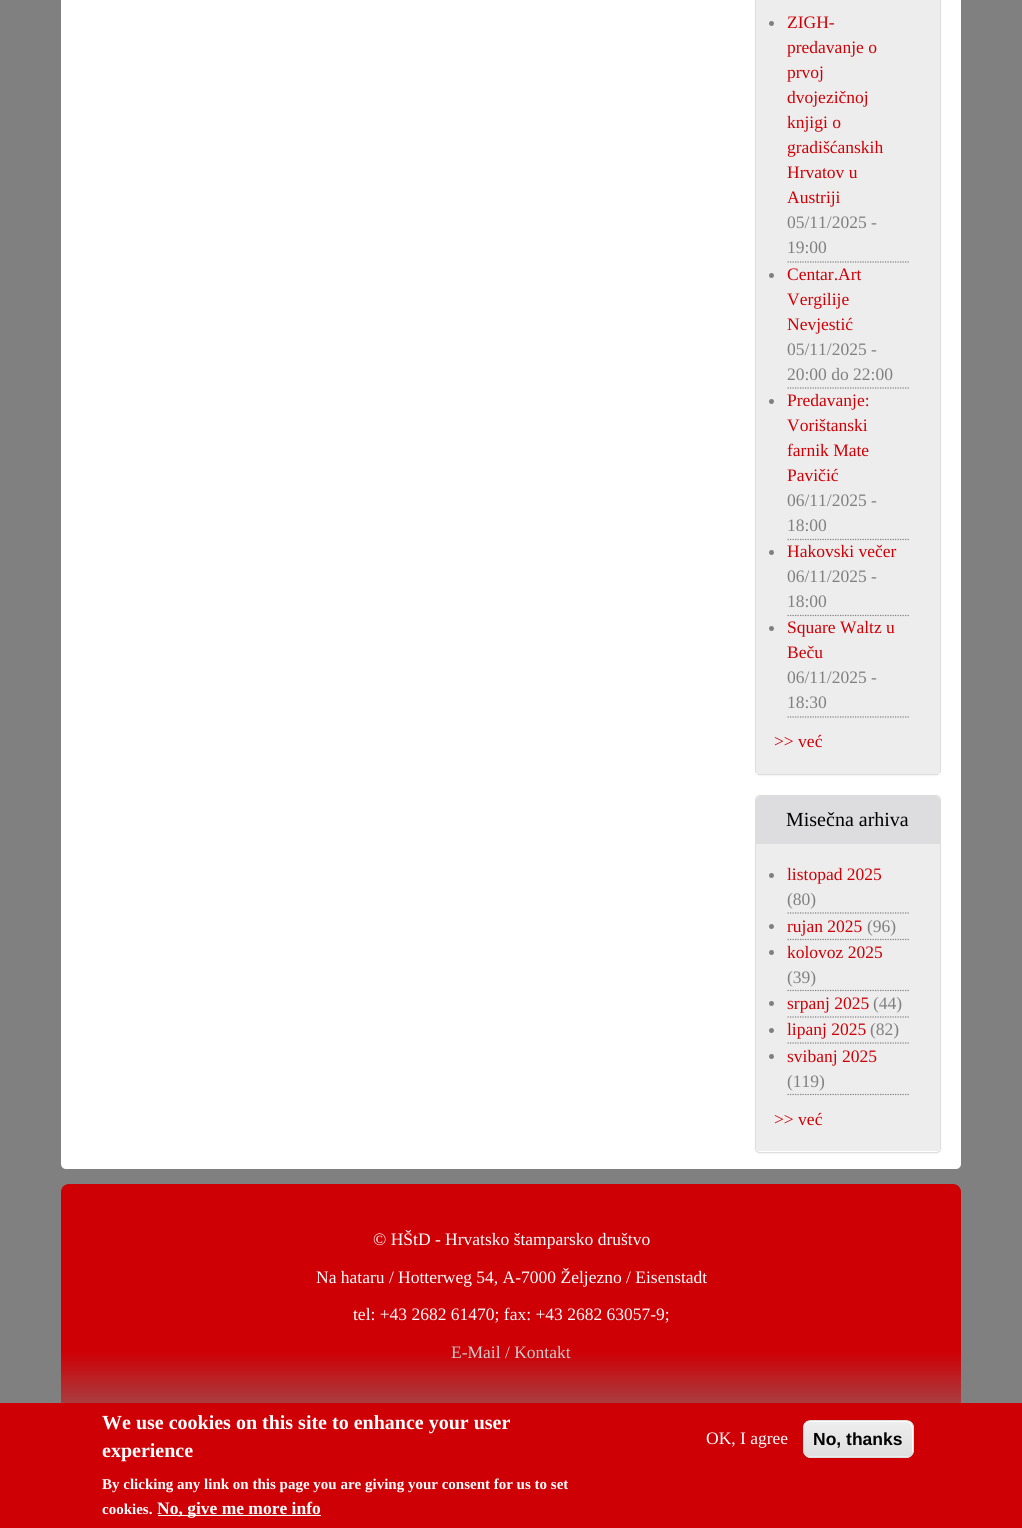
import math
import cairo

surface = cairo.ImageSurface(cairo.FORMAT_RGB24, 1022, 1528)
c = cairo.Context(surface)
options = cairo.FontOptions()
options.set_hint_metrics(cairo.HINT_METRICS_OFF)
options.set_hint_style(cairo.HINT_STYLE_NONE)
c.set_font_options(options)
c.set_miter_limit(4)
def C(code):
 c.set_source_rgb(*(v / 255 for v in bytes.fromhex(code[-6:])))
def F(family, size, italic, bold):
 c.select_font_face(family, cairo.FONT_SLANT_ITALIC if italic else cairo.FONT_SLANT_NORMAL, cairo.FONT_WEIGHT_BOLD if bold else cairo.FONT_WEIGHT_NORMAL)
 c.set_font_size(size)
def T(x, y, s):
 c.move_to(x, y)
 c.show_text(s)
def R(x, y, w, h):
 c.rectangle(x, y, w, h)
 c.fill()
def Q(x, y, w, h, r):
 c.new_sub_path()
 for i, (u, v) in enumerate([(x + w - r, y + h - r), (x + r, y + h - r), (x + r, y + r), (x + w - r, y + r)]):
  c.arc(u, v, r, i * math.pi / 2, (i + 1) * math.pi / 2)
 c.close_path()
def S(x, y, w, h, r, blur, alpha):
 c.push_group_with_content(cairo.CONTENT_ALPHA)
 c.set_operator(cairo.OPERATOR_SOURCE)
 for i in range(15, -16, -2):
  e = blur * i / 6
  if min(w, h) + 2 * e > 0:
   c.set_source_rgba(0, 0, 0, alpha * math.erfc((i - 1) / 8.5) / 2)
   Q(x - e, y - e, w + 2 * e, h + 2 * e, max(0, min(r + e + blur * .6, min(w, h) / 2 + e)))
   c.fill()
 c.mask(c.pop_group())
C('808080')
c.paint()
C('ffffff')
Q(61,-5,900,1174,5)
c.fill()
C('000000')
S(755,-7,186,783,5,.5,.05)
Q(755.5,-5.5,185,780,4.5)
C('dddddd')
c.set_line_width(1)
c.stroke()
C('ededee')
R(756,0,184,774)
c.new_path()
c.move_to(787.5,262)
c.line_to(909,262)
C('808080')
c.set_line_width(1.2)
c.set_dash([1.25,1.25])
c.stroke()
c.arc(771.5,23.5,2.5,0,2 * math.pi)
c.fill()
F('Liberation Serif',17.5,0,0)
C('ce0005')
T(787,28,'ZIGH-')
T(787,53,'predavanje o')
T(787,78,'prvoj')
T(787,103,'dvojezičnoj')
T(787,128,'knjigi o')
T(787,153,'gradišćanskih')
T(787,178,'Hrvatov u')
T(787,203,'Austriji')
C('808080')
T(787,228,'05/11/2025 -')
T(787,253,'19:00')
c.new_path()
c.move_to(787.5,388)
c.line_to(909,388)
c.stroke()
c.arc(771.5,275.5,2.5,0,2 * math.pi)
c.fill()
C('ce0005')
T(787,280,'Centar.Art')
T(787,305,'Vergilije')
T(787,330,'Nevjestić')
C('808080')
T(787,355,'05/11/2025 -')
T(787,380,'20:00 do 22:00')
c.new_path()
c.move_to(787.5,539.5)
c.line_to(909,539.5)
c.stroke()
c.arc(771.5,401.5,2.5,0,2 * math.pi)
c.fill()
C('ce0005')
T(787,406,'Predavanje:')
T(787,431,'Vorištanski')
T(787,456,'farnik Mate')
T(787,481,'Pavičić')
C('808080')
T(787,506,'06/11/2025 -')
T(787,531,'18:00')
c.new_path()
c.move_to(787.5,615.5)
c.line_to(909,615.5)
c.stroke()
c.arc(771.5,552.5,2.5,0,2 * math.pi)
c.fill()
C('ce0005')
T(787,557,'Hakovski večer')
C('808080')
T(787,582,'06/11/2025 -')
T(787,607,'18:00')
c.new_path()
c.move_to(787.5,717)
c.line_to(909,717)
c.stroke()
c.arc(771.5,628.5,2.5,0,2 * math.pi)
c.fill()
C('ce0005')
T(787,633,'Square Waltz u')
T(787,658,'Beču')
C('808080')
T(787,683,'06/11/2025 -')
T(787,708,'18:30')
C('ce0005')
T(774,747,'>> već')
C('000000')
S(755,796,186,358,5,.5,.05)
C('ffffff')
Q(755.5,795.5,185,357,4.5)
c.fill_preserve()
C('dddddd')
c.set_line_width(1)
c.set_dash([])
c.stroke()
C('dddddf')
c.new_path()
c.move_to(760,796)
c.line_to(936,796)
c.curve_to(938,796,940,798,940,800)
c.line_to(940,844)
c.line_to(756,844)
c.line_to(756,800)
c.curve_to(756,798,758,796,760,796)
c.close_path()
c.fill()
F('Liberation Serif',20,0,0)
C('000000')
T(786,826,'Misečna arhiva')
C('ededee')
R(756,844,184,307)
c.new_path()
c.move_to(787.5,913)
c.line_to(909,913)
C('808080')
c.set_line_width(1.2)
c.set_dash([1.25,1.25])
c.stroke()
c.arc(771.5,875.5,2.5,0,2 * math.pi)
c.fill()
F('Liberation Serif',17.5,0,0)
C('ce0005')
T(787,880,'listopad 2025')
C('808080')
T(787,905,'(80)')
c.new_path()
c.move_to(787.5,939.5)
c.line_to(909,939.5)
c.stroke()
c.arc(771.5,926.5,2.5,0,2 * math.pi)
c.fill()
C('ce0005')
T(787,932,'rujan 2025')
C('808080')
T(867,932,'(96)')
c.new_path()
c.move_to(787.5,990.5)
c.line_to(909,990.5)
c.stroke()
c.arc(771.5,952.5,2.5,0,2 * math.pi)
c.fill()
C('ce0005')
T(787,958,'kolovoz 2025')
C('808080')
T(787,983,'(39)')
c.new_path()
c.move_to(787.5,1017)
c.line_to(909,1017)
c.stroke()
c.arc(771.5,1003.5,2.5,0,2 * math.pi)
c.fill()
C('ce0005')
T(787,1009,'srpanj 2025')
C('808080')
T(873,1009,'(44)')
c.new_path()
c.move_to(787.5,1043)
c.line_to(909,1043)
c.stroke()
c.arc(771.5,1030.5,2.5,0,2 * math.pi)
c.fill()
C('ce0005')
T(787,1035,'lipanj 2025')
C('808080')
T(870,1035,'(82)')
c.new_path()
c.move_to(787.5,1094.5)
c.line_to(909,1094.5)
c.stroke()
c.arc(771.5,1056.5,2.5,0,2 * math.pi)
c.fill()
C('ce0005')
T(787,1062,'svibanj 2025')
C('808080')
T(787,1087,'(119)')
C('ce0005')
T(774,1125,'>> već')
gradient = cairo.LinearGradient(511,1184,511,1459)
gradient.add_color_stop_rgba(.61,0.808,0,0.02,1)
gradient.add_color_stop_rgba(1,0.502,0.502,0.502,1)
c.set_source(gradient)
Q(61,1184,900,275,8)
c.fill()
C('ffffff')
T(373,1245,'© HŠtD - Hrvatsko štamparsko društvo')
T(316,1283,'Na hataru / Hotterweg 54, A-7000 Željezno / Eisenstadt')
T(353,1320,'tel: +43 2682 61470; fax: +43 2682 63057-9;')
C('cacaca')
T(451,1358,'E-Mail / Kontakt')
C('ce0005')
R(0,1403,1022,125)
F('Liberation Serif',20,0,1)
C('ffffff')
T(102,1429,'We use cookies on this site to enhance your user')
T(102,1457,'experience')
F('Liberation Serif',15,0,1)
T(102,1489,'By clicking any link on this page you are giving your consent for us to set')
T(102,1514,'cookies.')
R(158,1515,163,1)
F('Liberation Serif',17.5,0,1)
T(157,1514,'No, give me more info')
F('Liberation Serif',17.5,0,0)
T(706,1444,'OK, I agree')
c.save()
Q(803,1420,111,38,8)
c.clip()
gradient = cairo.LinearGradient(858,1421,858,1456)
gradient.add_color_stop_rgba(.05,0.929,0.929,0.929,1)
gradient.add_color_stop_rgba(1,0.875,0.875,0.875,1)
c.set_source(gradient)
R(803,1421,111,35)
gradient = cairo.LinearGradient(858,1456,858,1491)
gradient.add_color_stop_rgba(.05,0.929,0.929,0.929,1)
gradient.add_color_stop_rgba(1,0.875,0.875,0.875,1)
c.set_source(gradient)
R(803,1456,111,2)
c.restore()
c.new_path()
c.move_to(810,1422)
c.line_to(906,1422)
c.curve_to(913,1422,912,1431,912,1436)
c.line_to(912,1454)
c.curve_to(914,1451,913,1442,913,1438)
c.curve_to(913,1433,915,1421,907,1421)
c.line_to(826,1421)
c.curve_to(817,1421,804,1417,804,1429)
c.curve_to(804,1425,807,1422,810,1422)
c.close_path()
c.fill()
Q(803.5,1420.5,110,37,7.5)
C('dcdcdc')
c.set_line_width(1)
c.set_dash([])
c.stroke()
F('Liberation Sans',17.5,0,1)
C('000000')
T(813,1445,'No, thanks')
surface.write_to_png('o.png')
